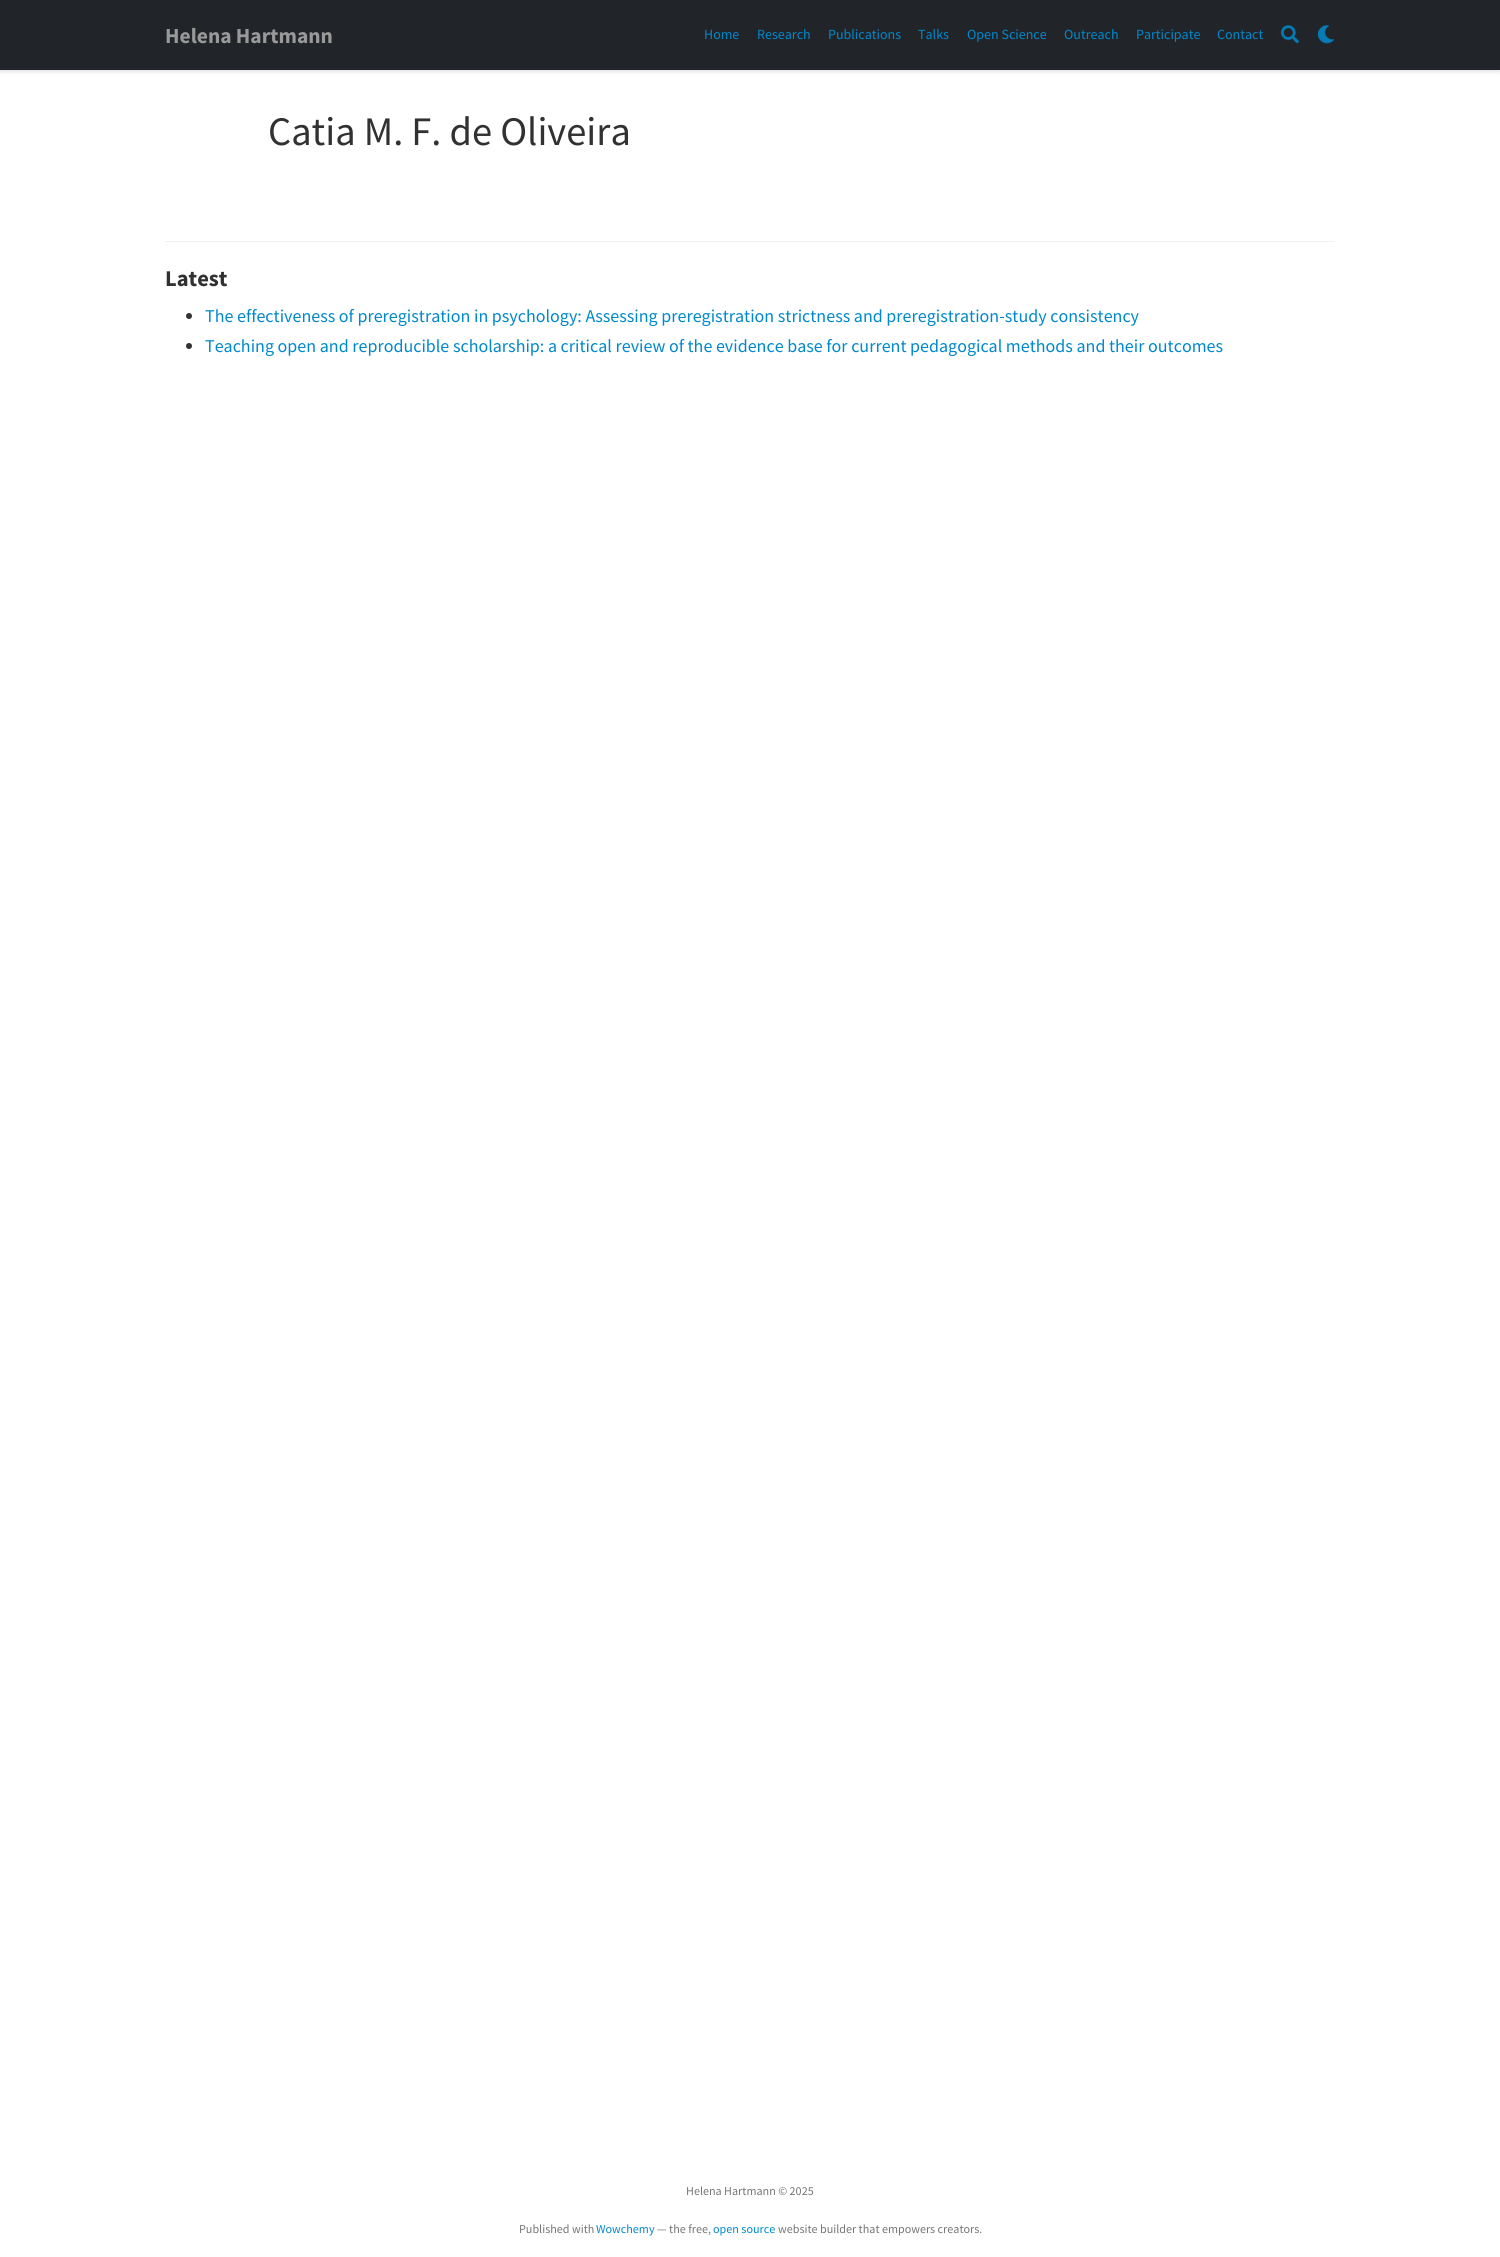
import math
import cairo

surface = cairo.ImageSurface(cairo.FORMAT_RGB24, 1500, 2257)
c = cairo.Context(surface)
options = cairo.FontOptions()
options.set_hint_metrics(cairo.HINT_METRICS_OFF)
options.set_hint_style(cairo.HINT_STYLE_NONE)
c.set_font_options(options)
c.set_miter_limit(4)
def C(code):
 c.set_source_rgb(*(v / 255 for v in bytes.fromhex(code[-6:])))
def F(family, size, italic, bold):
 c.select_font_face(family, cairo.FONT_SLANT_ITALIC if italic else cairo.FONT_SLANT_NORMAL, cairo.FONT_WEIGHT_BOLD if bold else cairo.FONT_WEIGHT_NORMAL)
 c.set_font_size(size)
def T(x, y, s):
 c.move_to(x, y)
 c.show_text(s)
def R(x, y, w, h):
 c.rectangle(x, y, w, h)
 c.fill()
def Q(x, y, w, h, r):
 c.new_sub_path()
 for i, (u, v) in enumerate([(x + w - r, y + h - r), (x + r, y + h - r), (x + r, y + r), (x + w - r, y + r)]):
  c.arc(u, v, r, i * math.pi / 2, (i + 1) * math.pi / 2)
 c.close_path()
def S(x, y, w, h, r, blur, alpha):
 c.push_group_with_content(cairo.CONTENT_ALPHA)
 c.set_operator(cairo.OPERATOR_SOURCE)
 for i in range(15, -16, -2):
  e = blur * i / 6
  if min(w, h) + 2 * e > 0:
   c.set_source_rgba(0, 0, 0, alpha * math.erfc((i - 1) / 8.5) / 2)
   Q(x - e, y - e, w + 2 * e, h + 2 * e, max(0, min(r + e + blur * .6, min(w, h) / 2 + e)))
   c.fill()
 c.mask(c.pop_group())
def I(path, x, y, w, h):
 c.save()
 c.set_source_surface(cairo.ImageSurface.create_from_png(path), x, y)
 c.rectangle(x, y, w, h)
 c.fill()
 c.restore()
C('ffffff')
c.paint()
C('000000')
S(0,2,1500,70,0,2,.11)
C('212529')
R(0,0,1500,70)
F('Source Sans Pro',21.5,0,1)
C('999999')
T(165,43,'Helena Hartmann')
F('Source Sans Pro',14,0,0)
C('0088cc')
T(704,39,'Home')
T(757,39,'Research')
T(828,39,'Publications')
T(918,39,'Talks')
T(967,39,'Open Science')
T(1064,39,'Outreach')
T(1136,39,'Participate')
T(1217,39,'Contact')
I('1.png',1281,25,18,19)
I('2.png',1317,25,17,19)
F('Source Sans Pro',40.5,0,0)
C('313131')
T(268,145,'Catia M. F. de Oliveira')
C('f2f2f2')
R(165,241,1170,1)
F('Source Sans Pro',22.5,0,1)
C('313131')
T(165,286,'Latest')
C('333333')
c.new_path()
c.arc(189,316,3,0,2 * math.pi)
c.fill()
F('Source Sans Pro',18,0,0)
C('0088cc')
T(205,322,'The effectiveness of preregistration in psychology: Assessing preregistration strictness and preregistration-study consistency')
C('333333')
c.new_path()
c.arc(189,346,3,0,2 * math.pi)
c.fill()
C('0088cc')
T(205,352,'Teaching open and reproducible scholarship: a critical review of the evidence base for current pedagogical methods and their outcomes')
F('Source Sans Pro',12.1,0,0)
C('757575')
T(686,2195,'Helena Hartmann © 2025')
T(519,2233,'Published with')
C('0088cc')
T(596,2233,'Wowchemy')
C('757575')
T(657,2233,'— the free,')
C('0088cc')
T(713,2233,'open source')
C('757575')
T(778,2233,'website builder that empowers creators.')
surface.write_to_png('o.png')
